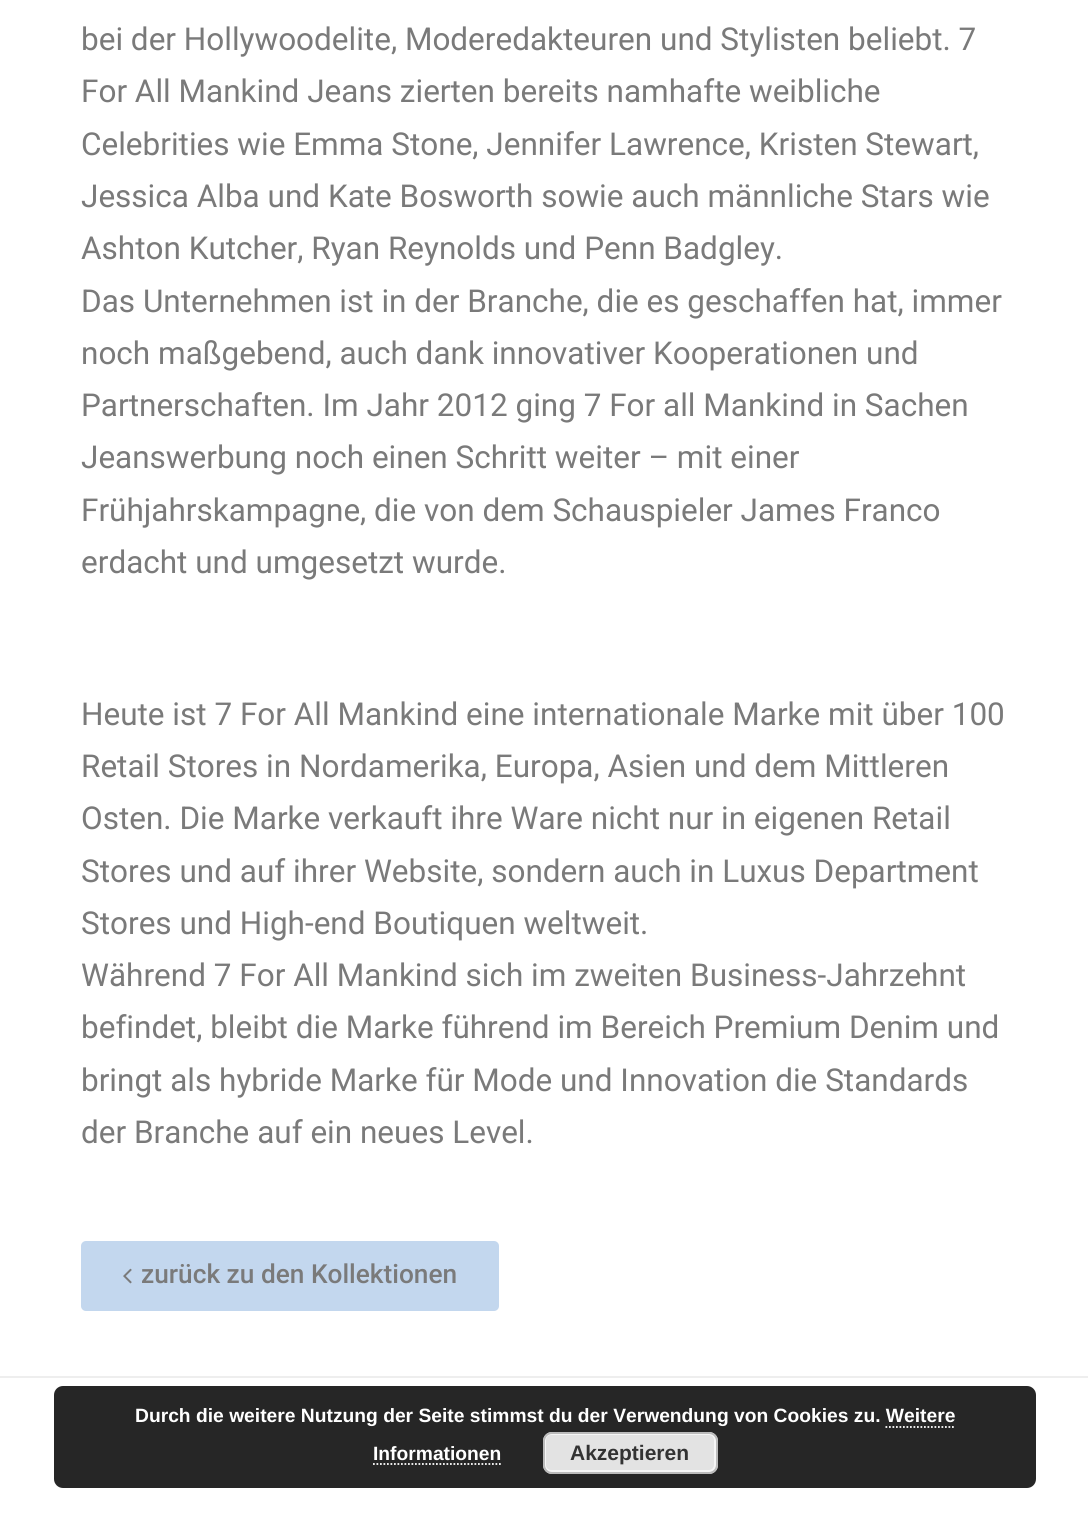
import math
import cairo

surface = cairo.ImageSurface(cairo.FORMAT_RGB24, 1088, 1540)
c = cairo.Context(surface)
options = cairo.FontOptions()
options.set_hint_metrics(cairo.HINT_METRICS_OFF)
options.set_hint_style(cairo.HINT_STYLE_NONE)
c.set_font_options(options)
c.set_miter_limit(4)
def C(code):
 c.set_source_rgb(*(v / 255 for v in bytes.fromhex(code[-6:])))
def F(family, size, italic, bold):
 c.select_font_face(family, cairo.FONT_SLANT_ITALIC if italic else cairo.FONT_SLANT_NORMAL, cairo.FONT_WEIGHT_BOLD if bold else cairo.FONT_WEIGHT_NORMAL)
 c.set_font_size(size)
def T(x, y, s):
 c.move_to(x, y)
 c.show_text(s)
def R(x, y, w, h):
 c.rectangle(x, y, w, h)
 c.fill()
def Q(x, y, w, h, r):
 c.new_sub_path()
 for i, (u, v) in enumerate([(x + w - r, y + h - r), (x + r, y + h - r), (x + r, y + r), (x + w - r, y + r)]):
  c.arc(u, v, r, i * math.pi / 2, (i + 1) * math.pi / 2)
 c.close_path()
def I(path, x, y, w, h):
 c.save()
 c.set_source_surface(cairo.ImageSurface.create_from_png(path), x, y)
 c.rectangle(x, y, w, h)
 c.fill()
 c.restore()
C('ffffff')
c.paint()
F('Roboto',31.5,0,0)
C('7a7a7a')
T(81,50,'bei der Hollywoodelite, Moderedakteuren und Stylisten beliebt. 7')
T(81,102,'For All Mankind Jeans zierten bereits namhafte weibliche')
T(81,155,'Celebrities wie Emma Stone, Jennifer Lawrence, Kristen Stewart,')
T(81,207,'Jessica Alba und Kate Bosworth sowie auch männliche Stars wie')
T(81,259,'Ashton Kutcher, Ryan Reynolds und Penn Badgley.')
T(81,312,'Das Unternehmen ist in der Branche, die es geschaffen hat, immer')
T(81,364,'noch maßgebend, auch dank innovativer Kooperationen und')
T(81,416,'Partnerschaften. Im Jahr 2012 ging 7 For all Mankind in Sachen')
T(81,468,'Jeanswerbung noch einen Schritt weiter – mit einer')
T(81,521,'Frühjahrskampagne, die von dem Schauspieler James Franco')
T(81,573,'erdacht und umgesetzt wurde.')
T(81,725,'Heute ist 7 For All Mankind eine internationale Marke mit über 100')
T(81,777,'Retail Stores in Nordamerika, Europa, Asien und dem Mittleren')
T(81,829,'Osten. Die Marke verkauft ihre Ware nicht nur in eigenen Retail')
T(81,882,'Stores und auf ihrer Website, sondern auch in Luxus Department')
T(81,934,'Stores und High-end Boutiquen weltweit.')
T(81,986,'Während 7 For All Mankind sich im zweiten Business-Jahrzehnt')
T(81,1038,'befindet, bleibt die Marke führend im Bereich Premium Denim und')
T(81,1091,'bringt als hybride Marke für Mode und Innovation die Standards')
T(81,1143,'der Branche auf ein neues Level.')
C('c3d7ee')
Q(81,1241,418,70,5)
c.fill()
I('1.png',123,1268,9,16)
F('Roboto Medium',26.25,0,0)
C('7a7a7a')
T(141,1283,'zurück zu den Kollektionen')
C('eeeeee')
R(0,1376,1088,2)
c.set_source_rgba(0,0,0,0.85)
Q(54,1386,982,102,9)
c.fill()
F('Liberation Sans',19.25,0,1)
C('ffffff')
T(135,1422,'Durch die weitere Nutzung der Seite stimmst du der Verwendung von Cookies zu. Weitere')
T(373,1460,'Informationen')
c.new_path()
c.move_to(885.5,1427)
c.line_to(955.5,1427)
c.set_line_width(1.8)
c.set_dash([1.75,1.75])
c.stroke()
c.new_path()
c.move_to(373,1464)
c.line_to(502,1464)
c.stroke()
C('e3e3e3')
Q(543,1432,175,42,9)
c.fill()
Q(545,1434,170,37,6)
C('f6f6f6')
c.set_line_width(2)
c.set_dash([])
c.stroke()
Q(544,1433,173,40,8)
C('bbbbbb')
c.stroke()
F('Liberation Sans',21,0,1)
C('333333')
T(570,1460,'Akzeptieren')
surface.write_to_png('o.png')
